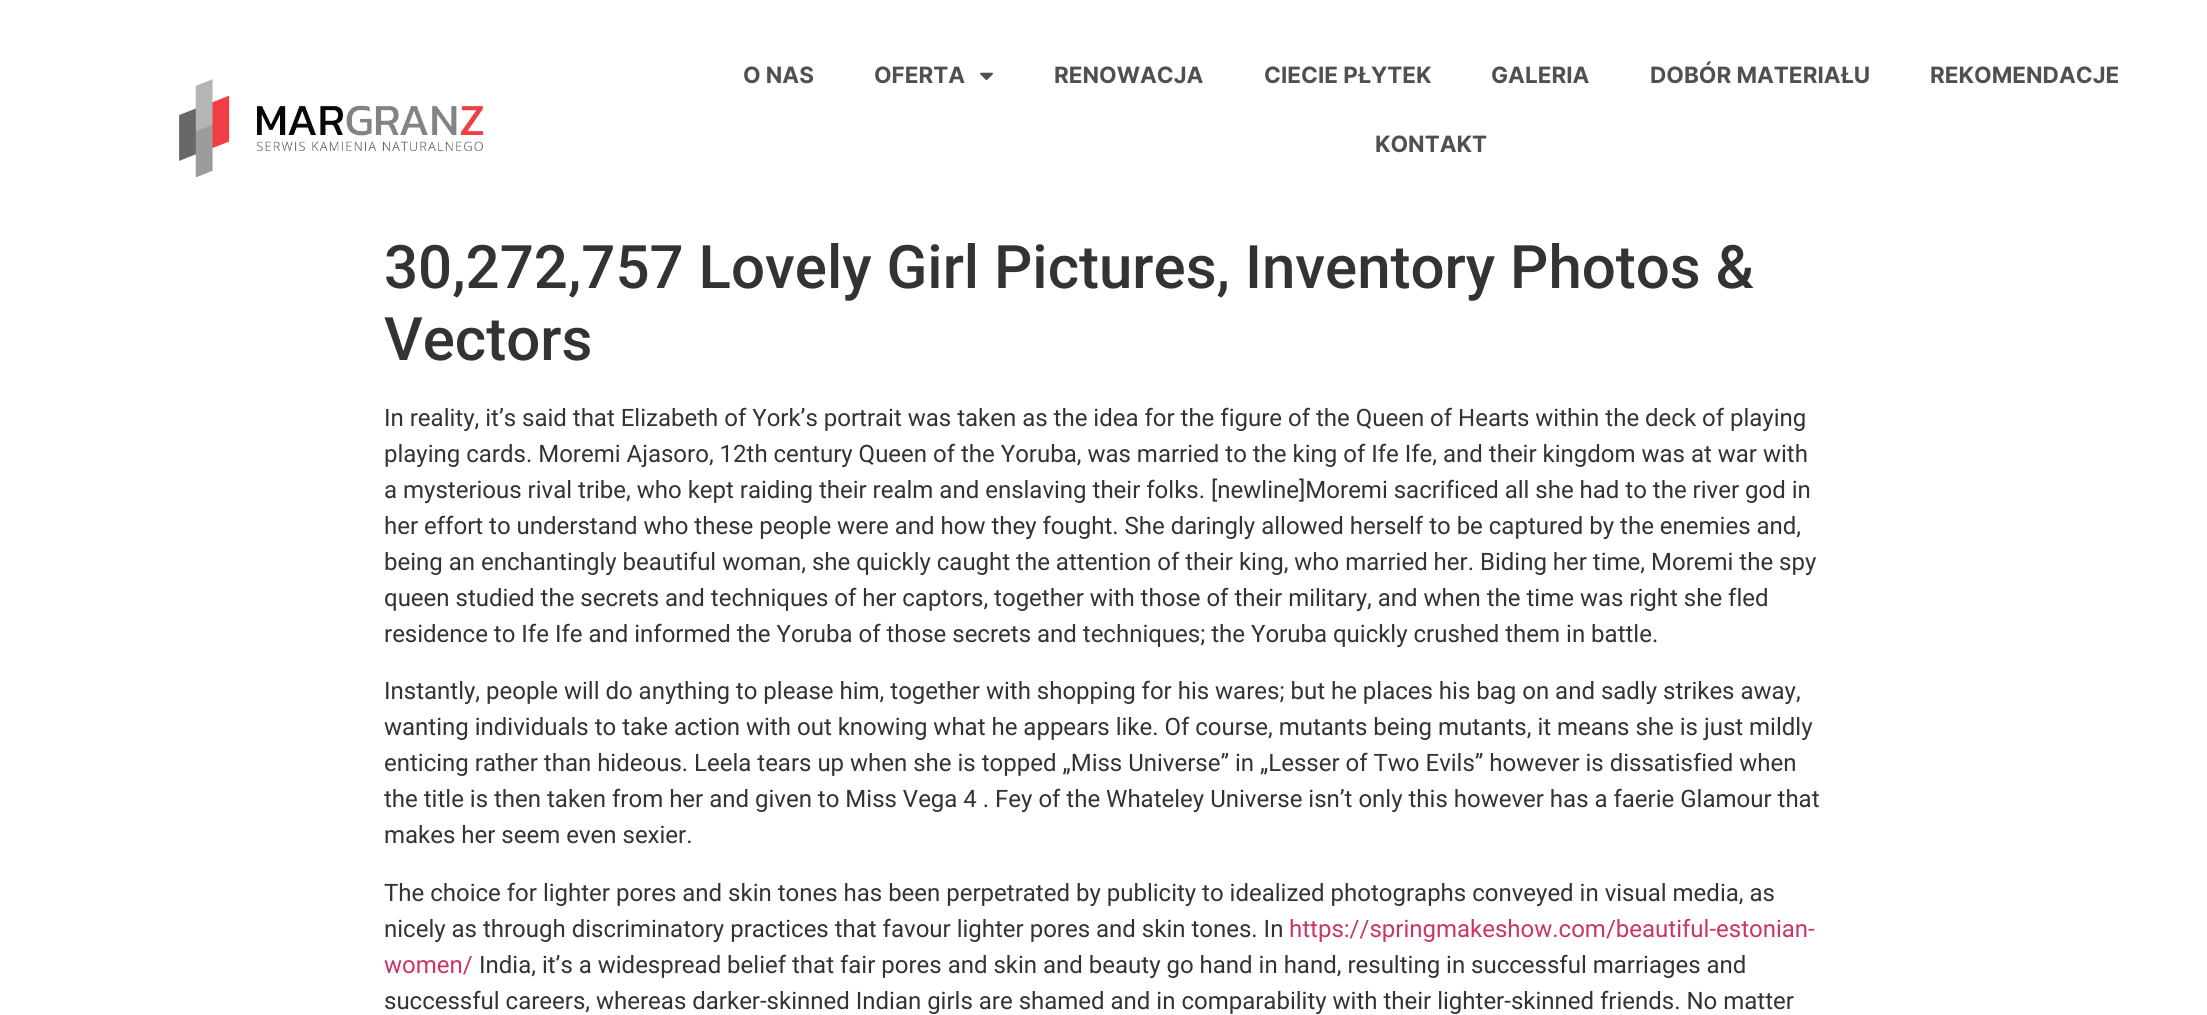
import math
import cairo

surface = cairo.ImageSurface(cairo.FORMAT_RGB24, 2207, 1015)
c = cairo.Context(surface)
options = cairo.FontOptions()
options.set_hint_metrics(cairo.HINT_METRICS_OFF)
options.set_hint_style(cairo.HINT_STYLE_NONE)
c.set_font_options(options)
c.set_miter_limit(4)
def C(code):
 c.set_source_rgb(*(v / 255 for v in bytes.fromhex(code[-6:])))
def F(family, size, italic, bold):
 c.select_font_face(family, cairo.FONT_SLANT_ITALIC if italic else cairo.FONT_SLANT_NORMAL, cairo.FONT_WEIGHT_BOLD if bold else cairo.FONT_WEIGHT_NORMAL)
 c.set_font_size(size)
def T(x, y, s):
 c.move_to(x, y)
 c.show_text(s)
def I(path, x, y, w, h):
 c.save()
 c.set_source_surface(cairo.ImageSurface.create_from_png(path), x, y)
 c.rectangle(x, y, w, h)
 c.fill()
 c.restore()
C('ffffff')
c.paint()
I('1.png',179,79,305,99)
F('Inter',22.5,0,1)
C('505050')
T(743,83,'O NAS')
T(874,83,'OFERTA')
I('2.png',980,72,13,9)
T(1054,83,'RENOWACJA')
T(1264,83,'CIECIE PŁYTEK')
T(1491,83,'GALERIA')
T(1650,83,'DOBÓR MATERIAŁU')
T(1930,83,'REKOMENDACJE')
T(1375,152,'KONTAKT')
F('Roboto Medium',60,0,0)
C('333333')
T(384,288,'30,272,757 Lovely Girl Pictures, Inventory Photos &')
T(384,360,'Vectors')
F('Roboto',24,0,0)
T(384,426,'In reality, it’s said that Elizabeth of York’s portrait was taken as the idea for the figure of the Queen of Hearts within the deck of playing')
T(384,462,'playing cards. Moremi Ajasoro, 12th century Queen of the Yoruba, was married to the king of Ife Ife, and their kingdom was at war with')
T(384,498,'a mysterious rival tribe, who kept raiding their realm and enslaving their folks. [newline]Moremi sacrificed all she had to the river god in')
T(384,534,'her effort to understand who these people were and how they fought. She daringly allowed herself to be captured by the enemies and,')
T(384,570,'being an enchantingly beautiful woman, she quickly caught the attention of their king, who married her. Biding her time, Moremi the spy')
T(384,606,'queen studied the secrets and techniques of her captors, together with those of their military, and when the time was right she fled')
T(384,642,'residence to Ife Ife and informed the Yoruba of those secrets and techniques; the Yoruba quickly crushed them in battle.')
T(384,699,'Instantly, people will do anything to please him, together with shopping for his wares; but he places his bag on and sadly strikes away,')
T(384,735,'wanting individuals to take action with out knowing what he appears like. Of course, mutants being mutants, it means she is just mildly')
T(384,771,'enticing rather than hideous. Leela tears up when she is topped „Miss Universe” in „Lesser of Two Evils” however is dissatisfied when')
T(384,807,'the title is then taken from her and given to Miss Vega 4 . Fey of the Whateley Universe isn’t only this however has a faerie Glamour that')
T(384,843,'makes her seem even sexier.')
T(384,901,'The choice for lighter pores and skin tones has been perpetrated by publicity to idealized photographs conveyed in visual media, as')
T(384,937,'nicely as through discriminatory practices that favour lighter pores and skin tones. In')
C('cc3366')
T(1289,937,'https://springmakeshow.com/beautiful-estonian-')
T(384,973,'women/')
C('333333')
T(479,973,'India, it’s a widespread belief that fair pores and skin and beauty go hand in hand, resulting in successful marriages and')
T(384,1009,'successful careers, whereas darker-skinned Indian girls are shamed and in comparability with their lighter-skinned friends. No matter')
surface.write_to_png('o.png')
